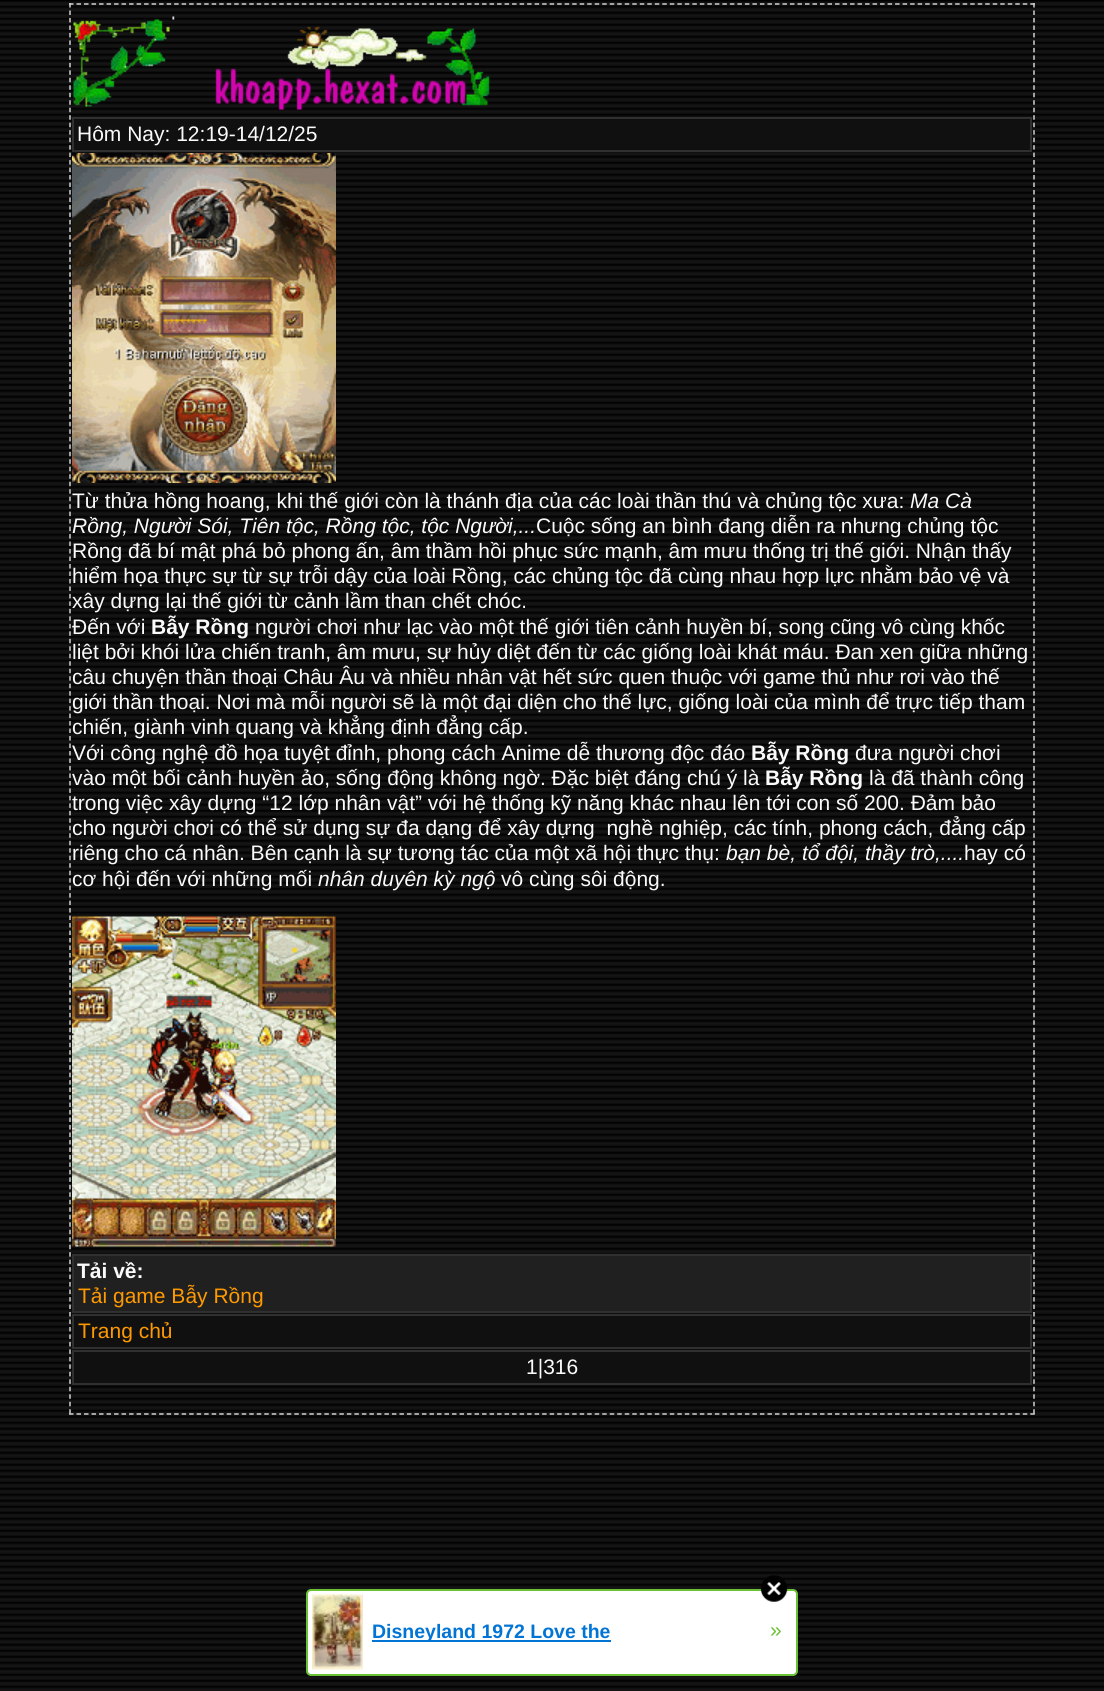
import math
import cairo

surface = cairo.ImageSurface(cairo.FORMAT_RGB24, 1104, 1691)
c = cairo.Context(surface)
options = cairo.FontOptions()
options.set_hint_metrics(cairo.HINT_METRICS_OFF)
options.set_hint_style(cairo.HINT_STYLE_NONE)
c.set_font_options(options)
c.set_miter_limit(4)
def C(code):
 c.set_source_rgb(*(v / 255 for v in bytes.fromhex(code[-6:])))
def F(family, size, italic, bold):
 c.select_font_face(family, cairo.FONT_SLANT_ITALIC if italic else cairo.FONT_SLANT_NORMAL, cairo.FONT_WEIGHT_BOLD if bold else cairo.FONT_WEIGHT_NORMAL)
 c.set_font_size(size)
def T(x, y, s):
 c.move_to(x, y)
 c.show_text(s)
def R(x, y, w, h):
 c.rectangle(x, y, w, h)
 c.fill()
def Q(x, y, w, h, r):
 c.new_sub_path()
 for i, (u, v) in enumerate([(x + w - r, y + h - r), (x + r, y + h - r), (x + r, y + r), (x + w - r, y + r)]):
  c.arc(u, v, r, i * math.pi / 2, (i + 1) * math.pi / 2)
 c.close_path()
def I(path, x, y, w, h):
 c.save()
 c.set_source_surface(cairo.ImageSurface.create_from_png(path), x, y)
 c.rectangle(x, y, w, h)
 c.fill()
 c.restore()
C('000000')
c.paint()
I('1.png',0,1,1104,1690)
c.new_path()
c.move_to(69,4)
c.line_to(1035,4)
C('d2d2d2')
c.set_line_width(1.5)
c.set_dash([4.5,3.01])
c.stroke()
c.new_path()
c.move_to(1034,3)
c.line_to(1034,1414.5)
c.set_dash([4.5,2.98])
c.stroke()
c.new_path()
c.move_to(69,1414)
c.line_to(1035,1414)
c.set_dash([4.5,3.01])
c.stroke()
c.new_path()
c.move_to(70,3)
c.line_to(70,1414.5)
c.set_dash([4.5,2.98])
c.stroke()
I('2.png',73,16,417,94)
C('101010')
R(74,120,956,29)
c.rectangle(73,118,958,33)
C('303030')
c.set_line_width(2)
c.set_dash([])
c.stroke()
F('Liberation Sans',21,0,0)
C('fafafa')
T(77,141,'Hôm Nay: 12:19-14/12/25')
I('3.png',72,153,264,330)
T(72,508,'Từ thửa hồng hoang, khi thế giới còn là thánh địa của các loài thần thú và chủng tộc xưa:')
F('Liberation Sans',21,1,0)
T(910,508,'Ma Cà')
T(72,533,'Rồng, Người Sói, Tiên tộc, Rồng tộc, tộc Người,...')
F('Liberation Sans',21,0,0)
T(536,533,'Cuộc sống an bình đang diễn ra nhưng chủng tộc')
T(72,558,'Rồng đã bí mật phá bỏ phong ấn, âm thầm hồi phục sức mạnh, âm mưu thống trị thế giới. Nhận thấy')
T(72,583,'hiểm họa thực sự từ sự trỗi dậy của loài Rồng, các chủng tộc đã cùng nhau hợp lực nhằm bảo vệ và')
T(72,608,'xây dựng lại thế giới từ cảnh lầm than chết chóc.')
T(72,634,'Đến với')
F('Liberation Sans',21,0,1)
T(151,634,'Bẫy Rồng')
F('Liberation Sans',21,0,0)
T(255,634,'người chơi như lạc vào một thế giới tiên cảnh huyền bí, song cũng vô cùng khốc')
T(72,659,'liệt bởi khói lửa chiến tranh, âm mưu, sự hủy diệt đến từ các giống loài khát máu. Đan xen giữa những')
T(72,684,'câu chuyện thần thoại Châu Âu và nhiều nhân vật hết sức quen thuộc với game thủ như rơi vào thế')
T(72,709,'giới thần thoại. Nơi mà mỗi người sẽ là một đại diện cho thế lực, giống loài của mình để trực tiếp tham')
T(72,734,'chiến, giành vinh quang và khẳng định đẳng cấp.')
T(72,760,'Với công nghệ đồ họa tuyệt đỉnh, phong cách Anime dễ thương độc đáo')
F('Liberation Sans',21,0,1)
T(751,760,'Bẫy Rồng')
F('Liberation Sans',21,0,0)
T(855,760,'đưa người chơi')
T(72,785,'vào một bối cảnh huyền ảo, sống động không ngờ. Đặc biệt đáng chú ý là')
F('Liberation Sans',21,0,1)
T(765,785,'Bẫy Rồng')
F('Liberation Sans',21,0,0)
T(869,785,'là đã thành công')
T(72,810,'trong việc xây dựng “12 lớp nhân vật” với hệ thống kỹ năng khác nhau lên tới con số 200. Đảm bảo')
T(72,835,'cho người chơi có thể sử dụng sự đa dạng để xây dựng  nghề nghiệp, các tính, phong cách, đẳng cấp')
T(72,860,'riêng cho cá nhân. Bên cạnh là sự tương tác của một xã hội thực thụ:')
F('Liberation Sans',21,1,0)
T(726,860,'bạn bè, tổ đội, thầy trò,....')
F('Liberation Sans',21,0,0)
T(964,860,'hay có')
T(72,886,'cơ hội đến với những mối')
F('Liberation Sans',21,1,0)
T(318,886,'nhân duyên kỳ ngộ')
F('Liberation Sans',21,0,0)
T(501,886,'vô cùng sôi động.')
I('4.png',72,916,264,331)
C('202020')
c.rectangle(73,1255,958,57)
c.fill_preserve()
C('303030')
c.stroke()
F('Liberation Sans',21,0,1)
C('fafafa')
T(77,1278,'Tải về:')
F('Liberation Sans',21,0,0)
C('ff9900')
T(78,1303,'Tải game Bẫy Rồng')
C('101010')
R(74,1317,956,29)
c.rectangle(73,1315,958,33)
C('303030')
c.stroke()
C('ff9900')
T(78,1338,'Trang chủ')
C('101010')
R(74,1353,956,29)
c.rectangle(73,1351,958,33)
C('303030')
c.stroke()
C('fafafa')
T(526,1374,'1|316')
C('ffffff')
Q(307,1590,490,85,4)
c.fill_preserve()
C('6bc135')
c.stroke()
I('5.png',760,1575,28,27)
I('6.png',312,1594,51,76)
C('0274d4')
R(372,1640,239,2)
F('Liberation Sans',19.5,0,1)
T(372,1638,'Disneyland 1972 Love the')
F('Liberation Sans',21,0,0)
C('6bc135')
T(770,1637,'»')
surface.write_to_png('o.png')
